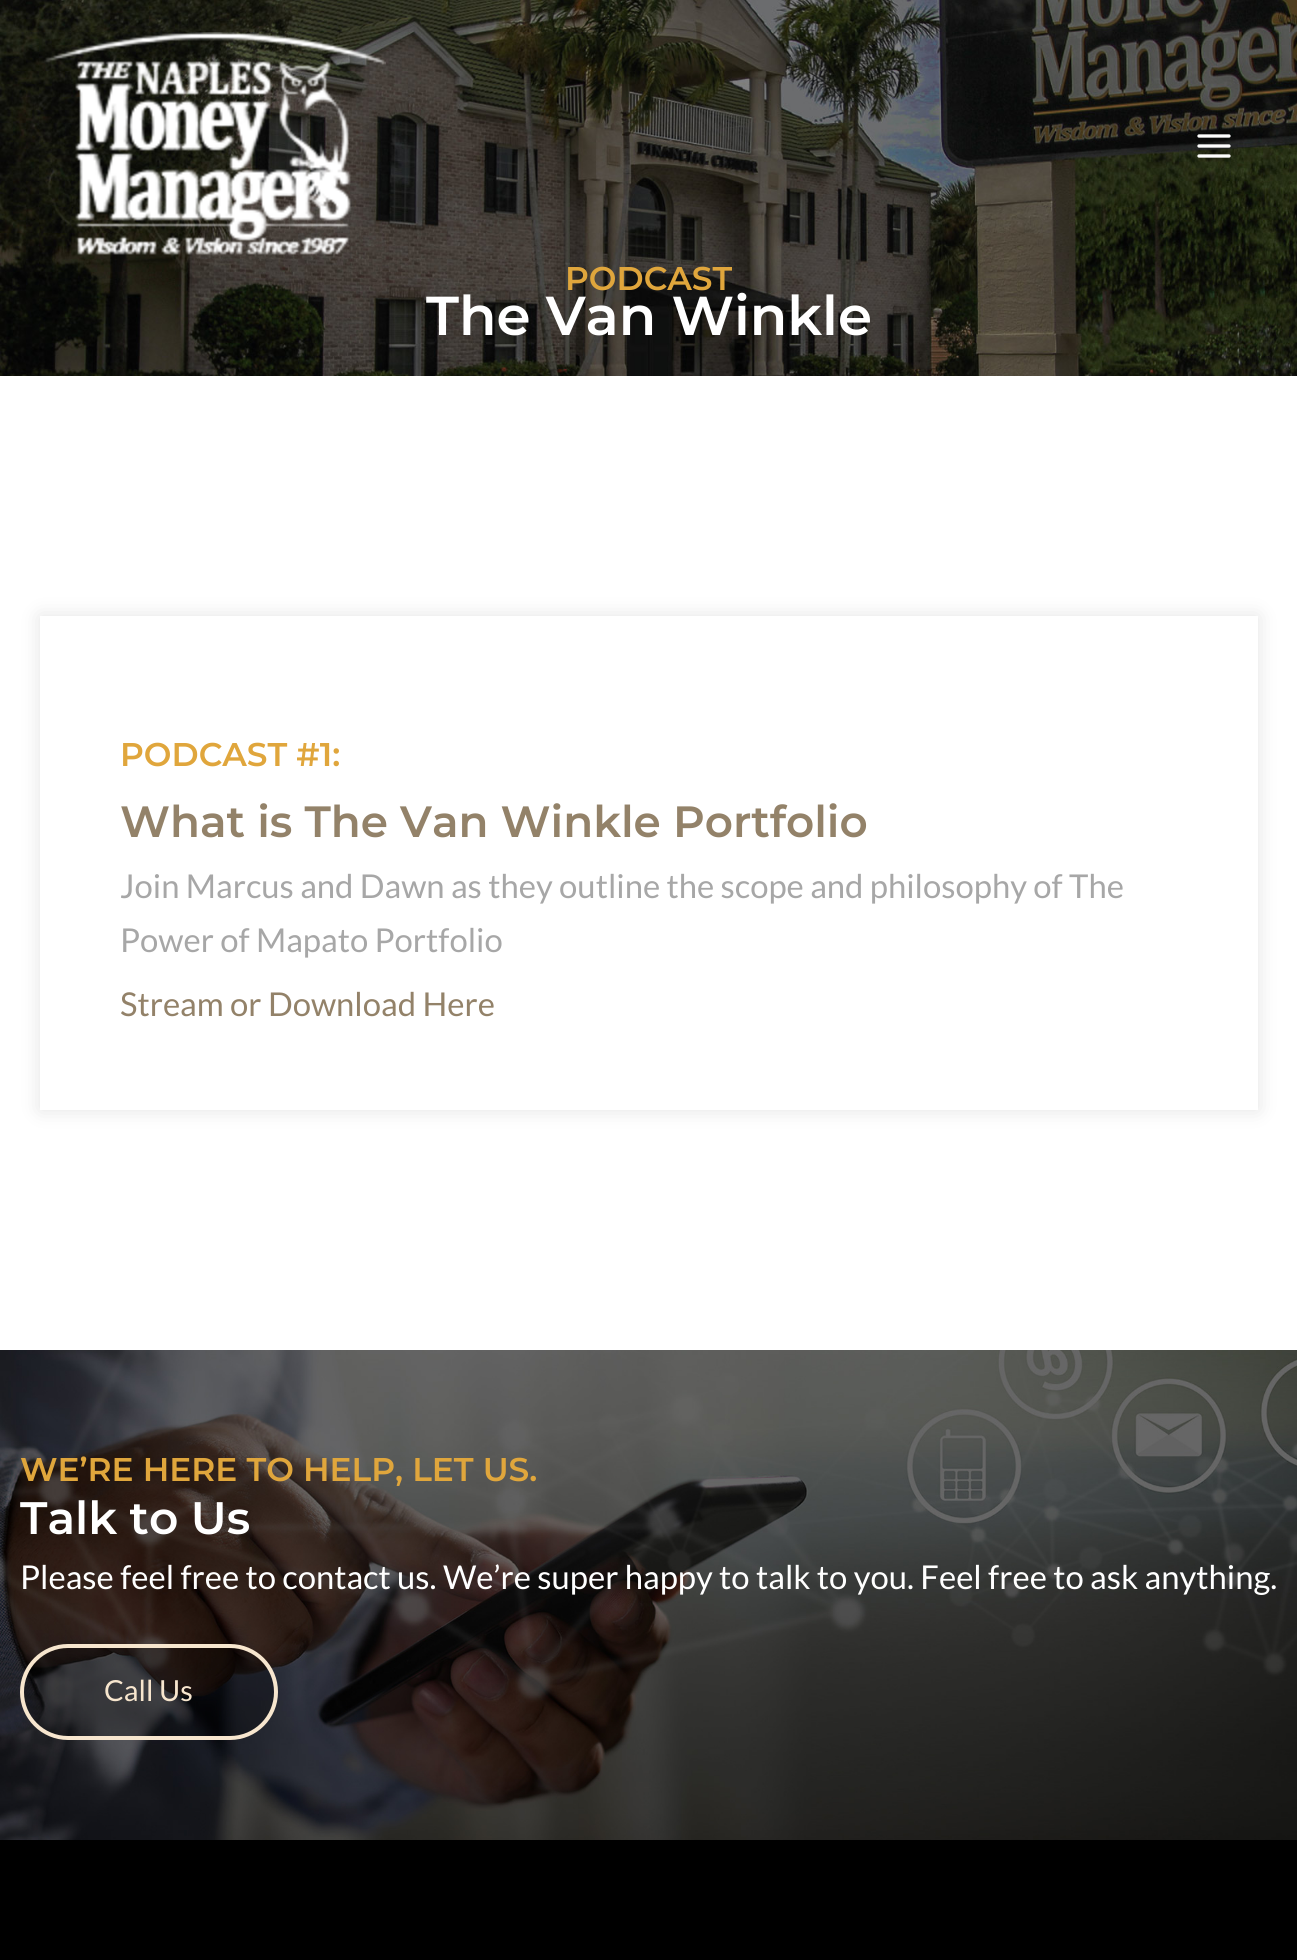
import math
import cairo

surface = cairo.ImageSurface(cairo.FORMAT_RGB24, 1297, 1960)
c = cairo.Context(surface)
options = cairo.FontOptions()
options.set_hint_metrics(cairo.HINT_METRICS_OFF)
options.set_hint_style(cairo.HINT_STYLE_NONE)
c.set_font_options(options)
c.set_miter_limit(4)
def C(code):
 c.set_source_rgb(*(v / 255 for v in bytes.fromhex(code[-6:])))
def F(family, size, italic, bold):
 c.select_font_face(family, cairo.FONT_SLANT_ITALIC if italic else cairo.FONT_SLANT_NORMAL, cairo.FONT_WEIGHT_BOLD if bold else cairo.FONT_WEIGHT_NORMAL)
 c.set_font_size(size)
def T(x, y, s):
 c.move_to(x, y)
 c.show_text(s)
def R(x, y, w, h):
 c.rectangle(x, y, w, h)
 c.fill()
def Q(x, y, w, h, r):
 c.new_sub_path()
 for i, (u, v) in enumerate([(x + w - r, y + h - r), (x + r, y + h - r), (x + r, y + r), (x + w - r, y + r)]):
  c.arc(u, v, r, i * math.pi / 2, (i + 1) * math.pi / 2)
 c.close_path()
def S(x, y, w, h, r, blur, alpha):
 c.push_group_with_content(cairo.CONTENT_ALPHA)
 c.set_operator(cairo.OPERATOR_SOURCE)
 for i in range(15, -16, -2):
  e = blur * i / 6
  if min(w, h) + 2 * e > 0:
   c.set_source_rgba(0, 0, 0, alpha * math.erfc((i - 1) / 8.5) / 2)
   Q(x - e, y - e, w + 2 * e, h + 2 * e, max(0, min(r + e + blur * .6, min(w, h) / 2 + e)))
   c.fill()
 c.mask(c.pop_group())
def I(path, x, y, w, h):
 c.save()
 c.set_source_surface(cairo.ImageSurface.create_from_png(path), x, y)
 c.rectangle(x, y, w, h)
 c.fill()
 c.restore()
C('ffffff')
c.paint()
I('3.png',0,0,1297,376)
I('1.png',44,32,342,223)
I('2.png',1197,134,34,24)
F('Montserrat Thin',32.85,0,0)
C('e0a63c')
T(565,290,'PODCAST')
F('Montserrat Thin',54.75,0,0)
C('ffffff')
T(426,335,'The Van Winkle')
c.save()
c.set_fill_rule(cairo.FILL_RULE_EVEN_ODD)
c.new_path()
c.move_to(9,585)
c.line_to(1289,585)
c.line_to(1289,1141)
c.line_to(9,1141)
c.close_path()
c.move_to(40,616)
c.line_to(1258,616)
c.line_to(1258,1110)
c.line_to(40,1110)
c.close_path()
c.clip()
C('c9c9c9')
S(40,616,1218,494,0,10,.5)
c.restore()
F('Montserrat Thin',32.85,0,0)
C('e0a63c')
T(120,766,'PODCAST #1:')
F('Montserrat Thin',43.75,0,0)
C('938269')
T(120,837,'What is The Van Winkle Portfolio')
F('Lato',32.85,0,0)
C('a7a7a7')
T(120,898,'Join Marcus and Dawn as they outline the scope and philosophy of The')
T(120,952,'Power of Mapato Portfolio')
C('938269')
T(120,1016,'Stream or Download Here')
I('4.png',0,1350,1297,490)
F('Montserrat Thin',32.85,0,0)
C('e0a63c')
T(20,1481,'WE’RE HERE TO HELP, LET US.')
F('Montserrat Thin',45.5,0,0)
C('ffffff')
T(20,1534,'Talk to Us')
F('Lato',32.85,0,0)
T(20,1589,'Please feel free to contact us. We’re super happy to talk to you. Feel free to ask anything.')
c.set_source_rgba(0,0,0,0.3)
Q(22,1646,254,92,46)
c.fill_preserve()
C('f7e6ce')
c.set_line_width(4)
c.stroke()
F('Lato',29,0,0)
T(104,1701,'Call Us')
C('000000')
R(0,1840,1297,120)
surface.write_to_png('o.png')
